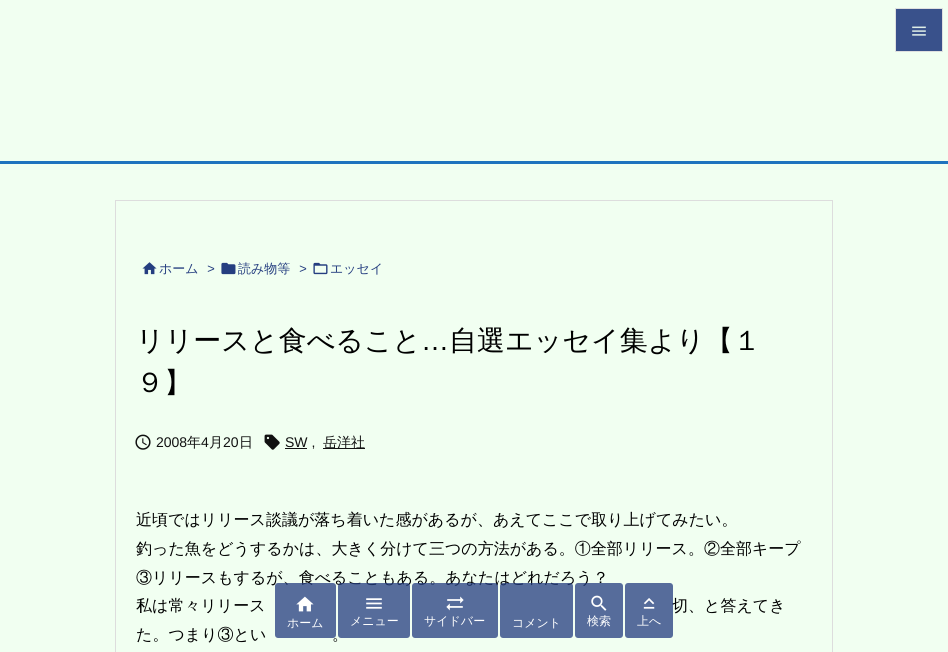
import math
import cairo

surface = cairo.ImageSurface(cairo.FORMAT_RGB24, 948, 652)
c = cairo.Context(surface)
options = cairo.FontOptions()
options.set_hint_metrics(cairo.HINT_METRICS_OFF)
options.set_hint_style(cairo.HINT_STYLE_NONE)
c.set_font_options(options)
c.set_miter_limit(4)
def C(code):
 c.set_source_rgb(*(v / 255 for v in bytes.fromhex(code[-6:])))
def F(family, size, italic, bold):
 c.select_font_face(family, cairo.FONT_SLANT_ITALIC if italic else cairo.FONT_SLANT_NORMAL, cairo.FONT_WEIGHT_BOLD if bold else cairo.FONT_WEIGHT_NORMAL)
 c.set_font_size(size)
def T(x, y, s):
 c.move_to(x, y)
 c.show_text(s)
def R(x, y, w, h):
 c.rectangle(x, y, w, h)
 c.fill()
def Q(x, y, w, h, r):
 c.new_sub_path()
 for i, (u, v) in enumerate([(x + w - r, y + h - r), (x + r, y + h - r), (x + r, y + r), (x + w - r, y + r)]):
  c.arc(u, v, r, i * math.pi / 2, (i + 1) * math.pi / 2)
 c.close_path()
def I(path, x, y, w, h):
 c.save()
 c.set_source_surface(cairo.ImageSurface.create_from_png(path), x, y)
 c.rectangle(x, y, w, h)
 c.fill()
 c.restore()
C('f1fff1')
c.paint()
C('39518b')
c.rectangle(895.5,8.5,47,43)
c.fill_preserve()
C('dfe0df')
c.set_line_width(1)
c.stroke()
I('1.png',912,26,14,10)
C('1e73be')
R(0,161,948,3)
c.rectangle(115.5,200.5,717,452)
C('dddddd')
c.stroke()
I('2.png',142,262,15,13)
F('WenQuanYi Zen Hei Medium',13,0,0)
C('253e80')
T(159,273,'ホーム')
F('Liberation Sans',13,1,0)
T(207,273,'>')
I('3.png',221,262,15,13)
F('WenQuanYi Zen Hei Medium',13,0,0)
T(238,273,'読み物等')
F('Liberation Sans',13,1,0)
T(299,273,'>')
I('4.png',313,262,15,13)
F('WenQuanYi Zen Hei Medium',13,0,0)
T(330,273,'エッセイ')
F('WenQuanYi Zen Hei Medium',28,0,0)
C('000000')
T(136,350,'リリースと食べること')
F('Liberation Sans',28,0,0)
T(421,350,'…')
F('WenQuanYi Zen Hei Medium',28,0,0)
T(449,350,'自選エッセイ集より【１')
T(136,392,'９】')
I('5.png',135,434,16,16)
F('Liberation Sans',14,0,0)
C('111111')
T(156,447,'2008')
F('WenQuanYi Zen Hei Medium',14,0,0)
T(187,447,'年')
F('Liberation Sans',14,0,0)
T(201,447,'4')
F('WenQuanYi Zen Hei Medium',14,0,0)
T(209,447,'月')
F('Liberation Sans',14,0,0)
T(223,447,'20')
F('WenQuanYi Zen Hei Medium',14,0,0)
T(239,447,'日')
I('6.png',264,434,16,16)
R(285,448,22,1)
F('Liberation Sans',14,0,0)
T(285,447,'SW ,')
R(323,448,42,1)
F('WenQuanYi Zen Hei Medium',14,0,0)
T(323,447,'岳洋社')
F('WenQuanYi Zen Hei Medium',16,0,0)
C('000000')
T(136,525,'近頃ではリリース談議が落ち着いた感があるが、あえてここで取り上げてみたい。')
T(136,554,'釣った魚をどうするかは、大きく分けて三つの方法がある。①全部リリース。②全部キープ')
T(136,583,'③リリースもするが、食べることもある。あなたはどれだろう？')
T(136,611,'私は常々リリース')
T(672,611,'切、と答えてき')
T(136,640,'た。つまり③とい')
T(332,640,'。')
c.set_source_rgba(0.145,0.243,0.502,0.76)
Q(275,583,61,55,3)
c.fill()
I('7.png',296,596,18,16)
F('WenQuanYi Zen Hei Medium',12,0,0)
C('ffffff')
T(287,627,'ホーム')
c.set_source_rgba(0.145,0.243,0.502,0.76)
Q(338,583,72,55,3)
c.fill()
I('8.png',366,598,16,11)
C('ffffff')
T(350,625,'メニュー')
c.set_source_rgba(0.145,0.243,0.502,0.76)
Q(412,583,86,55,3)
c.fill()
I('9.png',446,596,18,15)
C('ffffff')
T(424,625,'サイドバー')
c.set_source_rgba(0.145,0.243,0.502,0.76)
Q(500,583,73,55,3)
c.fill()
C('ffffff')
T(512,627,'コメント')
c.set_source_rgba(0.145,0.243,0.502,0.76)
Q(575,583,48,55,3)
c.fill()
I('10.png',591,595,16,16)
C('ffffff')
T(587,625,'検索')
c.set_source_rgba(0.145,0.243,0.502,0.76)
Q(625,583,48,55,3)
c.fill()
I('11.png',643,598,12,11)
C('ffffff')
T(637,625,'上へ')
surface.write_to_png('o.png')
